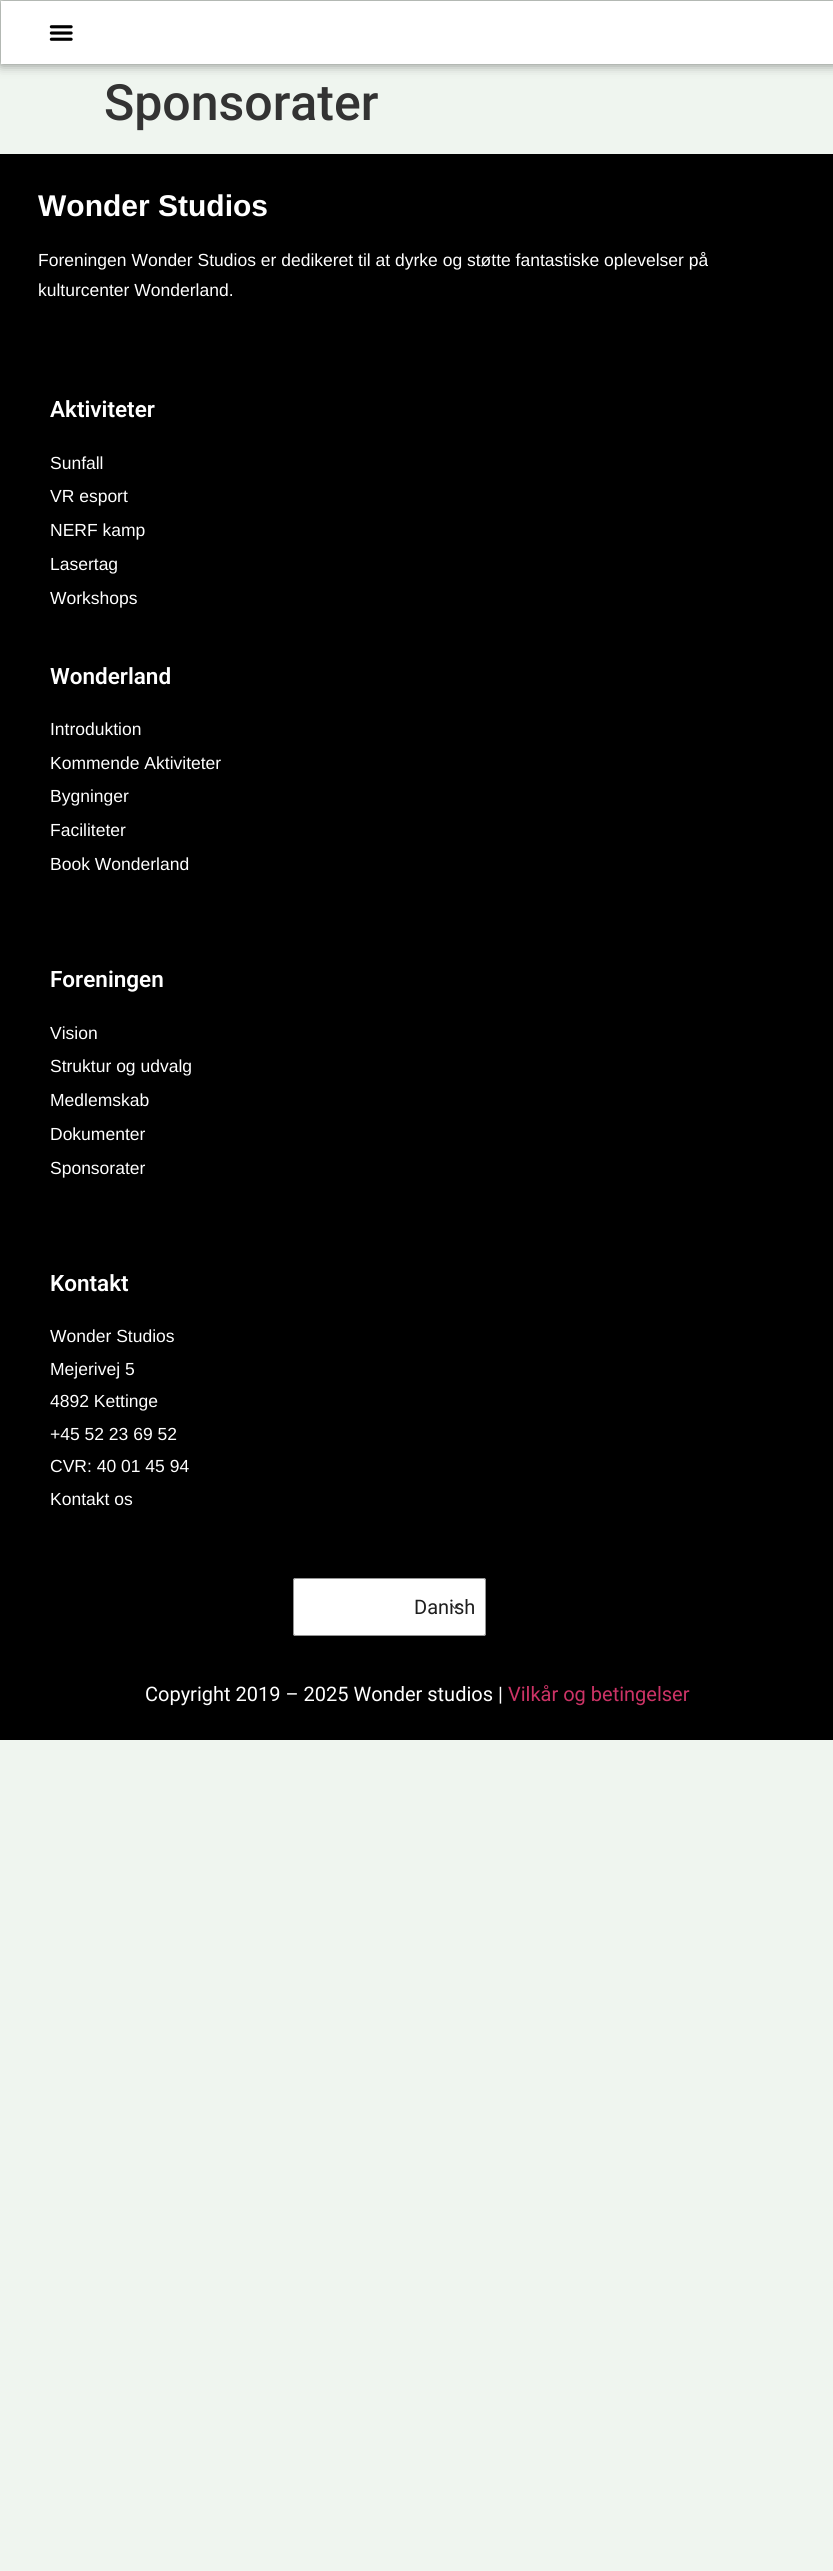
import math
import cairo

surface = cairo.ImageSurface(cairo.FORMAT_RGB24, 833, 2571)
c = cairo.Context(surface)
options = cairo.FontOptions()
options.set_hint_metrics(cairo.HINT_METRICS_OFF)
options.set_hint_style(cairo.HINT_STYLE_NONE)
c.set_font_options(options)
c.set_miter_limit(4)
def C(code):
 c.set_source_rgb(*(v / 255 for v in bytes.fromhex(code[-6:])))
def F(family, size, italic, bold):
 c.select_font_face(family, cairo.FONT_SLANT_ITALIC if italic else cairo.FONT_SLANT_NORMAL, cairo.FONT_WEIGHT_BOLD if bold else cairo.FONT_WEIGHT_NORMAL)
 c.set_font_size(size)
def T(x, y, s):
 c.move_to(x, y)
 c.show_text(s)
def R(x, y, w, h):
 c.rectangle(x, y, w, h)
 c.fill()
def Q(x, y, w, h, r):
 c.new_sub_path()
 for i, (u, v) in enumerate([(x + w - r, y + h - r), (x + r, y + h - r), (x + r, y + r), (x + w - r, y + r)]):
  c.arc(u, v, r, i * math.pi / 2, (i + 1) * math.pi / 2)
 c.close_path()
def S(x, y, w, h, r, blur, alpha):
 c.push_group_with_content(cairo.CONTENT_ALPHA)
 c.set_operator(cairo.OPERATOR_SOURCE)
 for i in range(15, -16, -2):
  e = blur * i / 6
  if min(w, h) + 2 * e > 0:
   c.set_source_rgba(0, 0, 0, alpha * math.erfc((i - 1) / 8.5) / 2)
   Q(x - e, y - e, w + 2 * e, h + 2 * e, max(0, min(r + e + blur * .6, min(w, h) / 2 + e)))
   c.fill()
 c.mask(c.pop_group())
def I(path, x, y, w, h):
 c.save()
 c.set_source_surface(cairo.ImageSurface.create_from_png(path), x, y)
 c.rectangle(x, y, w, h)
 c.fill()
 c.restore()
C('eff5ef')
c.paint()
C('000000')
S(1,1,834,63,0,6,.5)
C('ffffff')
R(1,1,832,63)
I('1.png',49,25,24,16)
F('Roboto Medium',50,0,0)
C('333333')
T(104,120,'Sponsorater')
C('000000')
R(0,154,833,1586)
F('Liberation Sans',30,0,1)
C('ffffff')
T(38,216,'Wonder Studios')
F('Liberation Sans',17.5,0,0)
T(38,266,'Foreningen Wonder Studios er dedikeret til at dyrke og støtte fantastiske oplevelser på')
T(38,296,'kulturcenter Wonderland.')
F('Roboto SemiBold',22.5,0,0)
T(50,417,'Aktiviteter')
F('Liberation Sans',17.5,0,0)
T(50,469,'Sunfall')
T(50,502,'VR esport')
T(50,536,'NERF kamp')
T(50,570,'Lasertag')
T(50,604,'Workshops')
F('Roboto SemiBold',22.5,0,0)
T(50,684,'Wonderland')
F('Liberation Sans',17.5,0,0)
T(50,735,'Introduktion')
T(50,769,'Kommende Aktiviteter')
T(50,802,'Bygninger')
T(50,836,'Faciliteter')
T(50,870,'Book Wonderland')
F('Roboto SemiBold',22.5,0,0)
T(50,987,'Foreningen')
F('Liberation Sans',17.5,0,0)
T(50,1039,'Vision')
T(50,1072,'Struktur og udvalg')
T(50,1106,'Medlemskab')
T(50,1140,'Dokumenter')
T(50,1174,'Sponsorater')
F('Roboto SemiBold',22.5,0,0)
T(50,1291,'Kontakt')
F('Liberation Sans',17.5,0,0)
T(50,1342,'Wonder Studios')
T(50,1375,'Mejerivej 5')
T(50,1407,'4892 Kettinge')
T(50,1440,'+45 52 23 69 52')
T(50,1472,'CVR: 40 01 45 94')
T(50,1505,'Kontakt os')
Q(293,1578,193,58,2.5)
c.fill()
I('2.png',450,1603,10,6)
Q(293.5,1578.5,192,57,2)
C('949494')
c.set_line_width(1)
c.stroke()
F('Roboto',20,0,0)
C('1e1e1e')
T(414,1614,'Danish')
C('ffffff')
T(145,1701,'Copyright 2019 – 2025 Wonder studios |')
C('cc3366')
T(508,1701,'Vilkår og betingelser')
surface.write_to_png('o.png')
